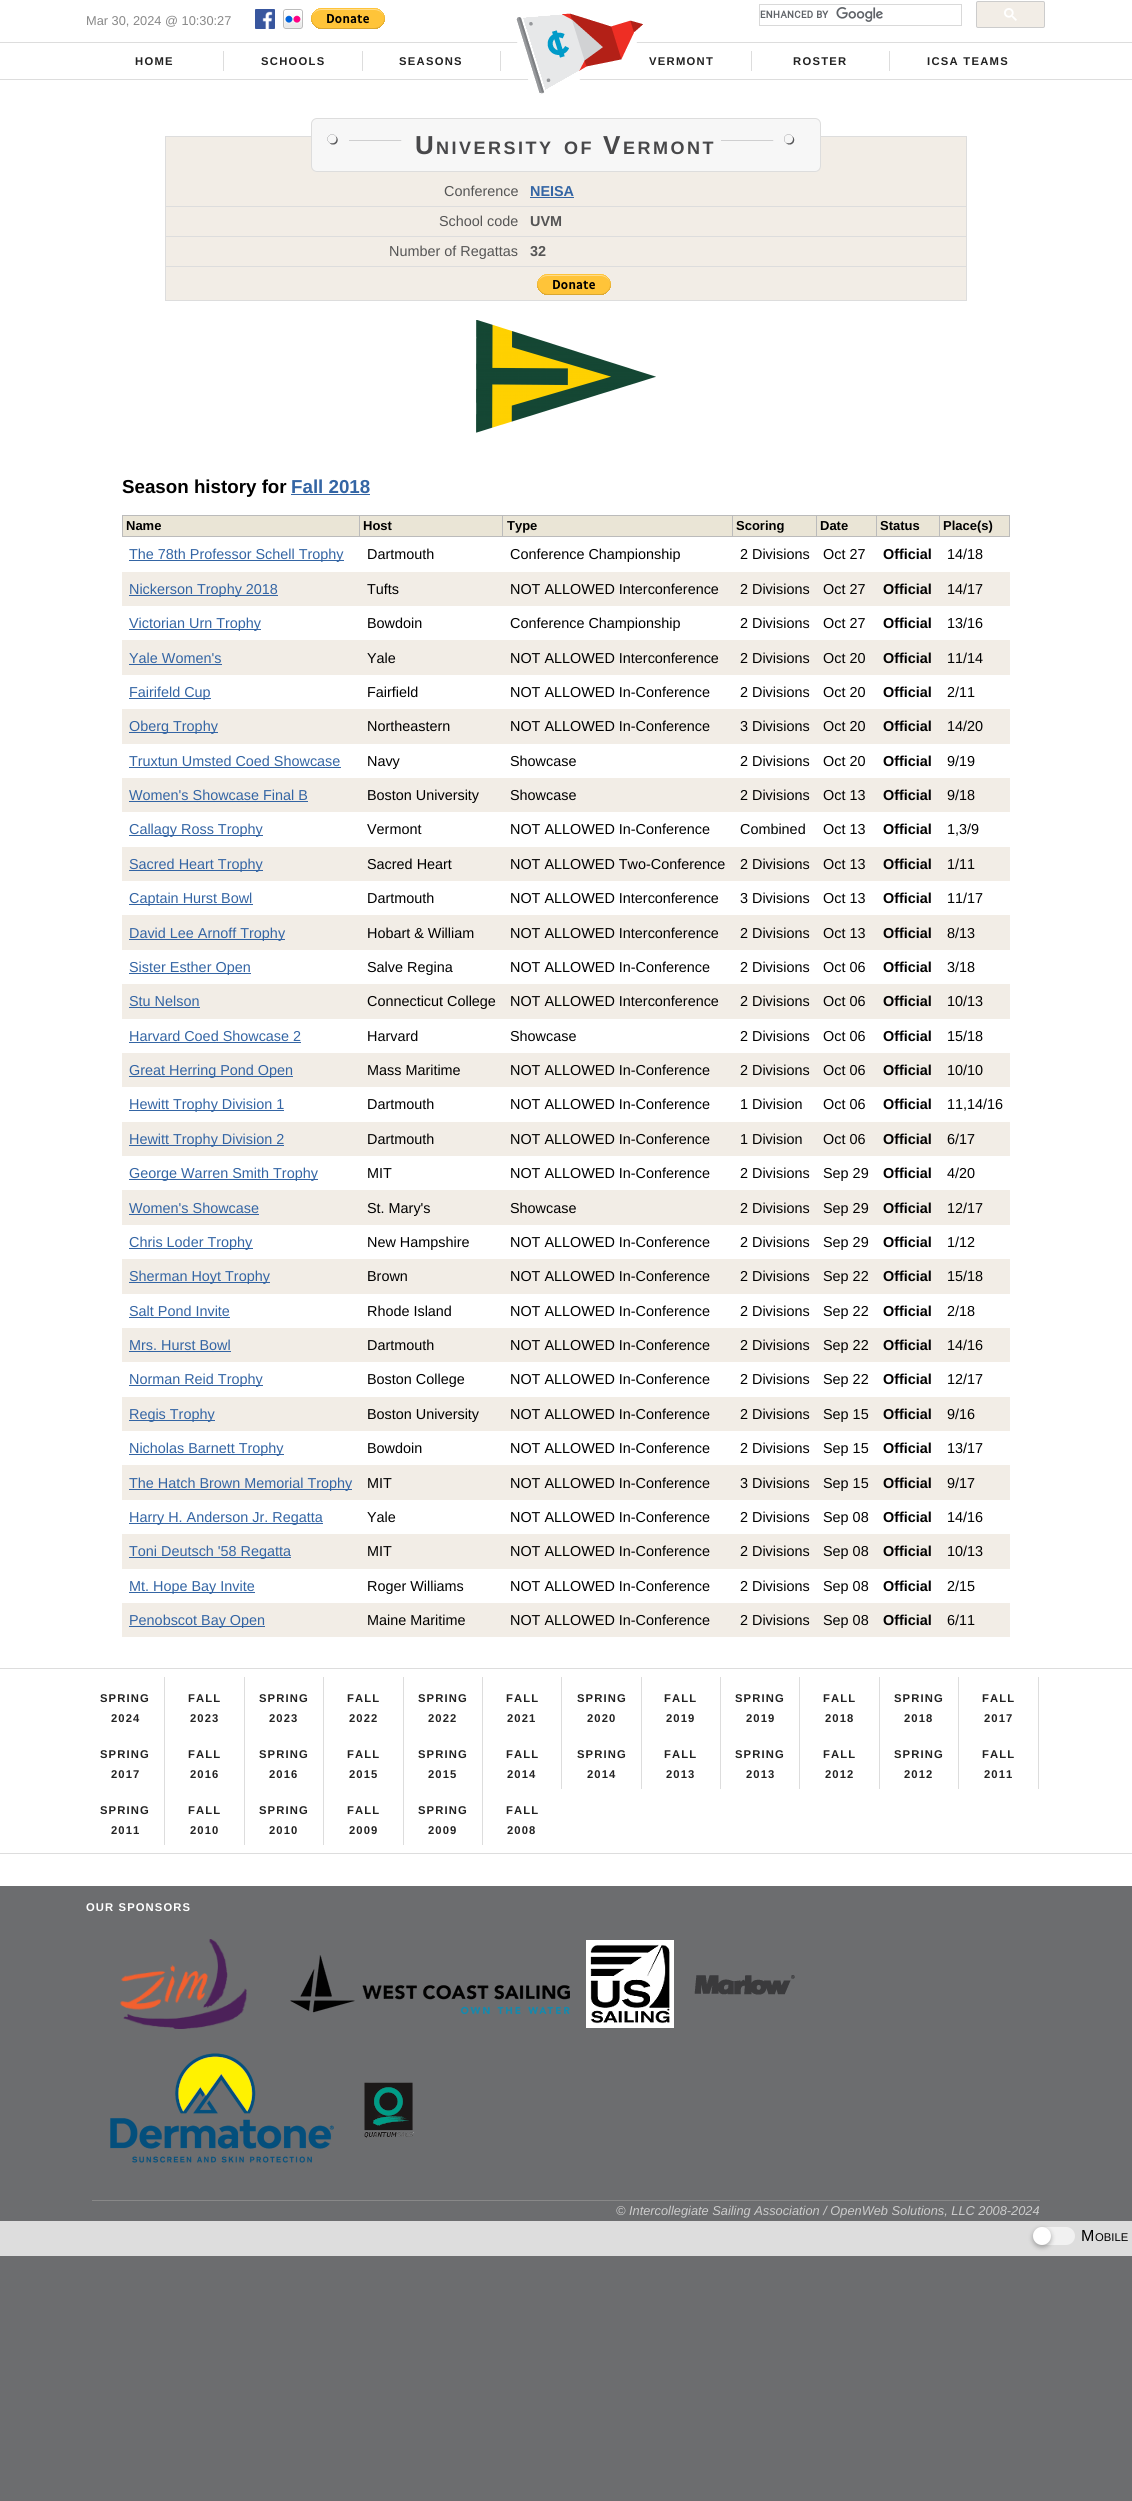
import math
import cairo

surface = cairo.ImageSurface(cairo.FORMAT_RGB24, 1132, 2501)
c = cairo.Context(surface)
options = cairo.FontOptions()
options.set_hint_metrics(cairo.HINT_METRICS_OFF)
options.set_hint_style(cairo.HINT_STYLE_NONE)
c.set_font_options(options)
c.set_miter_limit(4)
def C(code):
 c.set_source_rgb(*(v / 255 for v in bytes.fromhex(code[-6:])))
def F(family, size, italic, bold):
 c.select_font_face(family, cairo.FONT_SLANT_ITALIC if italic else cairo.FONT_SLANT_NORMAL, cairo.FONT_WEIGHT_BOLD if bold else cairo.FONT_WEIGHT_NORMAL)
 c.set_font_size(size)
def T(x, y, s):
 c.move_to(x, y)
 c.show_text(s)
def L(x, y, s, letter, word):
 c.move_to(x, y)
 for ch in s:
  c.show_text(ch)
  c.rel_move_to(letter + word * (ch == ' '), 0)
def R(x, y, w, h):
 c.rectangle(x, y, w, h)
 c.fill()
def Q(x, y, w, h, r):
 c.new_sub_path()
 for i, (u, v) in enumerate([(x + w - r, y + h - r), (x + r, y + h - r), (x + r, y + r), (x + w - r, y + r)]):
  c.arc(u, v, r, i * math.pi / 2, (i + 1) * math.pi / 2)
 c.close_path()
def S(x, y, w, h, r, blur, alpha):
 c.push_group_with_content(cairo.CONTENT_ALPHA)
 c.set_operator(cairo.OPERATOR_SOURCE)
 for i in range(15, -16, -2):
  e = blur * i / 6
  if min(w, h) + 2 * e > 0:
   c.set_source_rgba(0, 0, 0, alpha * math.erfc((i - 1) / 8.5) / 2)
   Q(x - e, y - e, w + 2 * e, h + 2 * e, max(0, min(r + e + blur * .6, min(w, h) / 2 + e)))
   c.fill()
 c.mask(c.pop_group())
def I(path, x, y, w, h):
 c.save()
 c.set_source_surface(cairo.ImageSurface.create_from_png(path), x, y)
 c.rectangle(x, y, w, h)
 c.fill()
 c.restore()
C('6c6d6f')
c.paint()
C('ffffff')
R(0,0,1132,79)
F('Liberation Sans',12.8,0,0)
C('888888')
T(86,25,'Mar 30, 2024 @ 10:30:27')
I('1.png',255,9,20,20)
I('2.png',283,9,20,20)
I('3.png',311,8,74,21)
c.rectangle(759.5,4.5,202,21)
C('d9d9d9')
c.set_line_width(1)
c.stroke()
I('4.png',760,7,123,15)
C('f2ede6')
Q(976.5,1.5,68,26,1.5)
c.fill_preserve()
C('cccccc')
c.stroke()
I('5.png',1004,8,13,13)
C('dddddd')
R(0,42,1132,1)
R(0,79,1132,1)
R(223,51,1,20)
F('Liberation Sans',11.25,0,1)
C('222222')
L(135,65,'HOME',1.25,0)
C('dddddd')
R(362,51,1,20)
C('222222')
L(261,65,'SCHOOLS',1.25,0)
C('dddddd')
R(500,51,1,20)
C('222222')
L(399,65,'SEASONS',1.25,0)
C('ffffff')
R(0,80,1132,1806)
I('6.png',516,13,127,82)
C('dddddd')
R(751,51,1,20)
C('222222')
L(649,65,'VERMONT',1.25,0)
C('dddddd')
R(889,51,1,20)
C('222222')
L(793,65,'ROSTER',1.25,0)
L(927,65,'ICSA TEAMS',1.25,0)
C('f2ede6')
c.rectangle(165.5,136.5,801,164)
c.fill_preserve()
C('dddddd')
c.stroke()
C('f7f7f7')
Q(311.5,118.5,509,53,5.5)
c.fill_preserve()
C('dddddd')
c.stroke()
I('7.png',327,134,75,11)
F('Liberation Sans',26,0,1)
C('48484a')
L(415,154,'U',2.5,0)
F('Liberation Sans',18,0,1)
L(436,154,'NIVERSITY',2.5,0)
L(564,154,'OF',2.5,0)
F('Liberation Sans',26,0,1)
L(603,154,'V',2.5,0)
F('Liberation Sans',18,0,1)
L(623,154,'ERMONT',2.5,0)
I('8.png',721,134,74,11)
C('dddddd')
R(166,206,801,1)
F('Liberation Sans',14.4,0,0)
C('555555')
T(444,196,'Conference')
F('Liberation Sans',14.4,0,1)
C('3465a4')
T(530,196,'NEISA')
R(530,197,44,1)
C('dddddd')
R(166,236,801,1)
F('Liberation Sans',14.4,0,0)
C('555555')
T(439,226,'School code')
F('Liberation Sans',14.4,0,1)
T(530,226,'UVM')
C('dddddd')
R(166,266,801,1)
F('Liberation Sans',14.4,0,0)
C('555555')
T(389,256,'Number of Regattas')
F('Liberation Sans',14.4,0,1)
T(530,256,'32')
I('9.png',537,274,74,21)
I('10.png',476,320,180,113)
F('Liberation Sans',18.75,0,1)
C('000000')
T(122,493,'Season history for')
C('3465a4')
T(291,493,'Fall 2018')
R(291,494,79,1)
C('eae5d6')
R(123,516,886,20)
C('bbbbbb')
R(122,515,888,1)
R(1009,515,1,22)
R(122,536,888,1)
R(122,515,1,22)
F('Liberation Sans',13,0,1)
C('000000')
T(126,530,'Name')
C('bbbbbb')
R(359,515,1,22)
C('000000')
T(363,530,'Host')
C('bbbbbb')
R(502,515,1,22)
C('000000')
T(507,530,'Type')
C('bbbbbb')
R(732,515,1,22)
C('000000')
T(736,530,'Scoring')
C('bbbbbb')
R(816,515,1,22)
C('000000')
T(820,530,'Date')
C('bbbbbb')
R(876,515,1,22)
C('000000')
T(880,530,'Status')
C('bbbbbb')
R(939,515,1,22)
C('000000')
T(943,530,'Place(s)')
C('3465a4')
R(129,560,215,1)
F('Liberation Sans',14.4,0,0)
T(129,559,'The 78th Professor Schell Trophy')
C('000000')
T(367,559,'Dartmouth')
T(510,559,'Conference Championship')
T(740,559,'2 Divisions')
T(823,559,'Oct 27')
F('Liberation Sans',14.4,0,1)
T(883,559,'Official')
F('Liberation Sans',14.4,0,0)
T(947,559,'14/18')
C('f2ede6')
R(122,572,888,34)
C('3465a4')
R(129,595,149,1)
T(129,594,'Nickerson Trophy 2018')
C('000000')
T(367,594,'Tufts')
T(510,594,'NOT ALLOWED Interconference')
T(740,594,'2 Divisions')
T(823,594,'Oct 27')
F('Liberation Sans',14.4,0,1)
T(883,594,'Official')
F('Liberation Sans',14.4,0,0)
T(947,594,'14/17')
C('3465a4')
R(129,629,132,1)
T(129,628,'Victorian Urn Trophy')
C('000000')
T(367,628,'Bowdoin')
T(510,628,'Conference Championship')
T(740,628,'2 Divisions')
T(823,628,'Oct 27')
F('Liberation Sans',14.4,0,1)
T(883,628,'Official')
F('Liberation Sans',14.4,0,0)
T(947,628,'13/16')
C('f2ede6')
R(122,640,888,35)
C('3465a4')
T(129,663,'Yale Women\'s')
R(129,664,93,1)
C('000000')
T(367,663,'Yale')
T(510,663,'NOT ALLOWED Interconference')
T(740,663,'2 Divisions')
T(823,663,'Oct 20')
F('Liberation Sans',14.4,0,1)
T(883,663,'Official')
F('Liberation Sans',14.4,0,0)
T(947,663,'11/14')
C('3465a4')
R(129,698,82,1)
T(129,697,'Fairifeld Cup')
C('000000')
T(367,697,'Fairfield')
T(510,697,'NOT ALLOWED In-Conference')
T(740,697,'2 Divisions')
T(823,697,'Oct 20')
F('Liberation Sans',14.4,0,1)
T(883,697,'Official')
F('Liberation Sans',14.4,0,0)
T(947,697,'2/11')
C('f2ede6')
R(122,709,888,35)
C('3465a4')
R(129,732,89,1)
T(129,731,'Oberg Trophy')
C('000000')
T(367,731,'Northeastern')
T(510,731,'NOT ALLOWED In-Conference')
T(740,731,'3 Divisions')
T(823,731,'Oct 20')
F('Liberation Sans',14.4,0,1)
T(883,731,'Official')
F('Liberation Sans',14.4,0,0)
T(947,731,'14/20')
C('3465a4')
T(129,766,'Truxtun Umsted Coed Showcase')
R(129,767,212,1)
C('000000')
T(367,766,'Navy')
T(510,766,'Showcase')
T(740,766,'2 Divisions')
T(823,766,'Oct 20')
F('Liberation Sans',14.4,0,1)
T(883,766,'Official')
F('Liberation Sans',14.4,0,0)
T(947,766,'9/19')
C('f2ede6')
R(122,778,888,34)
C('3465a4')
T(129,800,'Women\'s Showcase Final B')
R(129,801,179,1)
C('000000')
T(367,800,'Boston University')
T(510,800,'Showcase')
T(740,800,'2 Divisions')
T(823,800,'Oct 13')
F('Liberation Sans',14.4,0,1)
T(883,800,'Official')
F('Liberation Sans',14.4,0,0)
T(947,800,'9/18')
C('3465a4')
R(129,835,134,1)
T(129,834,'Callagy Ross Trophy')
C('000000')
T(367,834,'Vermont')
T(510,834,'NOT ALLOWED In-Conference')
T(740,834,'Combined')
T(823,834,'Oct 13')
F('Liberation Sans',14.4,0,1)
T(883,834,'Official')
F('Liberation Sans',14.4,0,0)
T(947,834,'1,3/9')
C('f2ede6')
R(122,847,888,34)
C('3465a4')
R(129,870,134,1)
T(129,869,'Sacred Heart Trophy')
C('000000')
T(367,869,'Sacred Heart')
T(510,869,'NOT ALLOWED Two-Conference')
T(740,869,'2 Divisions')
T(823,869,'Oct 13')
F('Liberation Sans',14.4,0,1)
T(883,869,'Official')
F('Liberation Sans',14.4,0,0)
T(947,869,'1/11')
C('3465a4')
R(129,904,124,1)
T(129,903,'Captain Hurst Bowl')
C('000000')
T(367,903,'Dartmouth')
T(510,903,'NOT ALLOWED Interconference')
T(740,903,'3 Divisions')
T(823,903,'Oct 13')
F('Liberation Sans',14.4,0,1)
T(883,903,'Official')
F('Liberation Sans',14.4,0,0)
T(947,903,'11/17')
C('f2ede6')
R(122,915,888,35)
C('3465a4')
R(129,939,156,1)
T(129,938,'David Lee Arnoff Trophy')
C('000000')
T(367,938,'Hobart & William')
T(510,938,'NOT ALLOWED Interconference')
T(740,938,'2 Divisions')
T(823,938,'Oct 13')
F('Liberation Sans',14.4,0,1)
T(883,938,'Official')
F('Liberation Sans',14.4,0,0)
T(947,938,'8/13')
C('3465a4')
R(129,973,122,1)
T(129,972,'Sister Esther Open')
C('000000')
T(367,972,'Salve Regina')
T(510,972,'NOT ALLOWED In-Conference')
T(740,972,'2 Divisions')
T(823,972,'Oct 06')
F('Liberation Sans',14.4,0,1)
T(883,972,'Official')
F('Liberation Sans',14.4,0,0)
T(947,972,'3/18')
C('f2ede6')
R(122,984,888,35)
C('3465a4')
T(129,1006,'Stu Nelson')
R(129,1007,71,1)
C('000000')
T(367,1006,'Connecticut College')
T(510,1006,'NOT ALLOWED Interconference')
T(740,1006,'2 Divisions')
T(823,1006,'Oct 06')
F('Liberation Sans',14.4,0,1)
T(883,1006,'Official')
F('Liberation Sans',14.4,0,0)
T(947,1006,'10/13')
C('3465a4')
T(129,1041,'Harvard Coed Showcase 2')
R(129,1042,172,1)
C('000000')
T(367,1041,'Harvard')
T(510,1041,'Showcase')
T(740,1041,'2 Divisions')
T(823,1041,'Oct 06')
F('Liberation Sans',14.4,0,1)
T(883,1041,'Official')
F('Liberation Sans',14.4,0,0)
T(947,1041,'15/18')
C('f2ede6')
R(122,1053,888,34)
C('3465a4')
R(129,1076,164,1)
T(129,1075,'Great Herring Pond Open')
C('000000')
T(367,1075,'Mass Maritime')
T(510,1075,'NOT ALLOWED In-Conference')
T(740,1075,'2 Divisions')
T(823,1075,'Oct 06')
F('Liberation Sans',14.4,0,1)
T(883,1075,'Official')
F('Liberation Sans',14.4,0,0)
T(947,1075,'10/10')
C('3465a4')
R(129,1110,155,1)
T(129,1109,'Hewitt Trophy Division 1')
C('000000')
T(367,1109,'Dartmouth')
T(510,1109,'NOT ALLOWED In-Conference')
T(740,1109,'1 Division')
T(823,1109,'Oct 06')
F('Liberation Sans',14.4,0,1)
T(883,1109,'Official')
F('Liberation Sans',14.4,0,0)
T(947,1109,'11,14/16')
C('f2ede6')
R(122,1122,888,34)
C('3465a4')
R(129,1145,155,1)
T(129,1144,'Hewitt Trophy Division 2')
C('000000')
T(367,1144,'Dartmouth')
T(510,1144,'NOT ALLOWED In-Conference')
T(740,1144,'1 Division')
T(823,1144,'Oct 06')
F('Liberation Sans',14.4,0,1)
T(883,1144,'Official')
F('Liberation Sans',14.4,0,0)
T(947,1144,'6/17')
C('3465a4')
R(129,1179,189,1)
T(129,1178,'George Warren Smith Trophy')
C('000000')
T(367,1178,'MIT')
T(510,1178,'NOT ALLOWED In-Conference')
T(740,1178,'2 Divisions')
T(823,1178,'Sep 29')
F('Liberation Sans',14.4,0,1)
T(883,1178,'Official')
F('Liberation Sans',14.4,0,0)
T(947,1178,'4/20')
C('f2ede6')
R(122,1190,888,35)
C('3465a4')
T(129,1213,'Women\'s Showcase')
R(129,1214,130,1)
C('000000')
T(367,1213,'St. Mary\'s')
T(510,1213,'Showcase')
T(740,1213,'2 Divisions')
T(823,1213,'Sep 29')
F('Liberation Sans',14.4,0,1)
T(883,1213,'Official')
F('Liberation Sans',14.4,0,0)
T(947,1213,'12/17')
C('3465a4')
R(129,1248,124,1)
T(129,1247,'Chris Loder Trophy')
C('000000')
T(367,1247,'New Hampshire')
T(510,1247,'NOT ALLOWED In-Conference')
T(740,1247,'2 Divisions')
T(823,1247,'Sep 29')
F('Liberation Sans',14.4,0,1)
T(883,1247,'Official')
F('Liberation Sans',14.4,0,0)
T(947,1247,'1/12')
C('f2ede6')
R(122,1259,888,35)
C('3465a4')
R(129,1282,141,1)
T(129,1281,'Sherman Hoyt Trophy')
C('000000')
T(367,1281,'Brown')
T(510,1281,'NOT ALLOWED In-Conference')
T(740,1281,'2 Divisions')
T(823,1281,'Sep 22')
F('Liberation Sans',14.4,0,1)
T(883,1281,'Official')
F('Liberation Sans',14.4,0,0)
T(947,1281,'15/18')
C('3465a4')
T(129,1316,'Salt Pond Invite')
R(129,1317,101,1)
C('000000')
T(367,1316,'Rhode Island')
T(510,1316,'NOT ALLOWED In-Conference')
T(740,1316,'2 Divisions')
T(823,1316,'Sep 22')
F('Liberation Sans',14.4,0,1)
T(883,1316,'Official')
F('Liberation Sans',14.4,0,0)
T(947,1316,'2/18')
C('f2ede6')
R(122,1328,888,34)
C('3465a4')
T(129,1350,'Mrs. Hurst Bowl')
R(129,1351,102,1)
C('000000')
T(367,1350,'Dartmouth')
T(510,1350,'NOT ALLOWED In-Conference')
T(740,1350,'2 Divisions')
T(823,1350,'Sep 22')
F('Liberation Sans',14.4,0,1)
T(883,1350,'Official')
F('Liberation Sans',14.4,0,0)
T(947,1350,'14/16')
C('3465a4')
R(129,1385,134,1)
T(129,1384,'Norman Reid Trophy')
C('000000')
T(367,1384,'Boston College')
T(510,1384,'NOT ALLOWED In-Conference')
T(740,1384,'2 Divisions')
T(823,1384,'Sep 22')
F('Liberation Sans',14.4,0,1)
T(883,1384,'Official')
F('Liberation Sans',14.4,0,0)
T(947,1384,'12/17')
C('f2ede6')
R(122,1397,888,34)
C('3465a4')
R(129,1420,86,1)
T(129,1419,'Regis Trophy')
C('000000')
T(367,1419,'Boston University')
T(510,1419,'NOT ALLOWED In-Conference')
T(740,1419,'2 Divisions')
T(823,1419,'Sep 15')
F('Liberation Sans',14.4,0,1)
T(883,1419,'Official')
F('Liberation Sans',14.4,0,0)
T(947,1419,'9/16')
C('3465a4')
R(129,1454,155,1)
T(129,1453,'Nicholas Barnett Trophy')
C('000000')
T(367,1453,'Bowdoin')
T(510,1453,'NOT ALLOWED In-Conference')
T(740,1453,'2 Divisions')
T(823,1453,'Sep 15')
F('Liberation Sans',14.4,0,1)
T(883,1453,'Official')
F('Liberation Sans',14.4,0,0)
T(947,1453,'13/17')
C('f2ede6')
R(122,1465,888,35)
C('3465a4')
R(129,1489,223,1)
T(129,1488,'The Hatch Brown Memorial Trophy')
C('000000')
T(367,1488,'MIT')
T(510,1488,'NOT ALLOWED In-Conference')
T(740,1488,'3 Divisions')
T(823,1488,'Sep 15')
F('Liberation Sans',14.4,0,1)
T(883,1488,'Official')
F('Liberation Sans',14.4,0,0)
T(947,1488,'9/17')
C('3465a4')
R(129,1523,194,1)
T(129,1522,'Harry H. Anderson Jr. Regatta')
C('000000')
T(367,1522,'Yale')
T(510,1522,'NOT ALLOWED In-Conference')
T(740,1522,'2 Divisions')
T(823,1522,'Sep 08')
F('Liberation Sans',14.4,0,1)
T(883,1522,'Official')
F('Liberation Sans',14.4,0,0)
T(947,1522,'14/16')
C('f2ede6')
R(122,1534,888,35)
C('3465a4')
R(129,1557,162,1)
T(129,1556,'Toni Deutsch \'58 Regatta')
C('000000')
T(367,1556,'MIT')
T(510,1556,'NOT ALLOWED In-Conference')
T(740,1556,'2 Divisions')
T(823,1556,'Sep 08')
F('Liberation Sans',14.4,0,1)
T(883,1556,'Official')
F('Liberation Sans',14.4,0,0)
T(947,1556,'10/13')
C('3465a4')
R(129,1592,126,1)
T(129,1591,'Mt. Hope Bay Invite')
C('000000')
T(367,1591,'Roger Williams')
T(510,1591,'NOT ALLOWED In-Conference')
T(740,1591,'2 Divisions')
T(823,1591,'Sep 08')
F('Liberation Sans',14.4,0,1)
T(883,1591,'Official')
F('Liberation Sans',14.4,0,0)
T(947,1591,'2/15')
C('f2ede6')
R(122,1603,888,34)
C('3465a4')
R(129,1626,136,1)
T(129,1625,'Penobscot Bay Open')
C('000000')
T(367,1625,'Maine Maritime')
T(510,1625,'NOT ALLOWED In-Conference')
T(740,1625,'2 Divisions')
T(823,1625,'Sep 08')
F('Liberation Sans',14.4,0,1)
T(883,1625,'Official')
F('Liberation Sans',14.4,0,0)
T(947,1625,'6/11')
C('dddddd')
R(0,1668,1132,1)
R(0,1853,1132,1)
R(164,1677,1,168)
F('Liberation Sans',11.25,0,1)
C('222222')
L(100,1702,'SPRING',1.1,0)
L(111,1722,'2024',1.1,0)
C('dddddd')
R(244,1677,1,168)
C('222222')
L(188,1702,'FALL',1.1,0)
L(190,1722,'2023',1.1,0)
C('dddddd')
R(323,1677,1,168)
C('222222')
L(259,1702,'SPRING',1.1,0)
L(269,1722,'2023',1.1,0)
C('dddddd')
R(403,1677,1,168)
C('222222')
L(347,1702,'FALL',1.1,0)
L(349,1722,'2022',1.1,0)
C('dddddd')
R(482,1677,1,168)
C('222222')
L(418,1702,'SPRING',1.1,0)
L(428,1722,'2022',1.1,0)
C('dddddd')
R(561,1677,1,112)
C('222222')
L(506,1702,'FALL',1.1,0)
L(507,1722,'2021',1.1,0)
C('dddddd')
R(641,1677,1,112)
C('222222')
L(577,1702,'SPRING',1.1,0)
L(587,1722,'2020',1.1,0)
C('dddddd')
R(720,1677,1,112)
C('222222')
L(664,1702,'FALL',1.1,0)
L(666,1722,'2019',1.1,0)
C('dddddd')
R(799,1677,1,112)
C('222222')
L(735,1702,'SPRING',1.1,0)
L(746,1722,'2019',1.1,0)
C('dddddd')
R(879,1677,1,112)
C('222222')
L(823,1702,'FALL',1.1,0)
L(825,1722,'2018',1.1,0)
C('dddddd')
R(958,1677,1,112)
C('222222')
L(894,1702,'SPRING',1.1,0)
L(904,1722,'2018',1.1,0)
C('dddddd')
R(1038,1677,1,112)
C('222222')
L(982,1702,'FALL',1.1,0)
L(984,1722,'2017',1.1,0)
L(100,1758,'SPRING',1.1,0)
L(111,1778,'2017',1.1,0)
L(188,1758,'FALL',1.1,0)
L(190,1778,'2016',1.1,0)
L(259,1758,'SPRING',1.1,0)
L(269,1778,'2016',1.1,0)
L(347,1758,'FALL',1.1,0)
L(349,1778,'2015',1.1,0)
L(418,1758,'SPRING',1.1,0)
L(428,1778,'2015',1.1,0)
L(506,1758,'FALL',1.1,0)
L(507,1778,'2014',1.1,0)
L(577,1758,'SPRING',1.1,0)
L(587,1778,'2014',1.1,0)
L(664,1758,'FALL',1.1,0)
L(666,1778,'2013',1.1,0)
L(735,1758,'SPRING',1.1,0)
L(746,1778,'2013',1.1,0)
L(823,1758,'FALL',1.1,0)
L(825,1778,'2012',1.1,0)
L(894,1758,'SPRING',1.1,0)
L(904,1778,'2012',1.1,0)
L(982,1758,'FALL',1.1,0)
L(984,1778,'2011',1.1,0)
L(100,1814,'SPRING',1.1,0)
L(111,1834,'2011',1.1,0)
L(188,1814,'FALL',1.1,0)
L(190,1834,'2010',1.1,0)
L(259,1814,'SPRING',1.1,0)
L(269,1834,'2010',1.1,0)
L(347,1814,'FALL',1.1,0)
L(349,1834,'2009',1.1,0)
L(418,1814,'SPRING',1.1,0)
L(428,1834,'2009',1.1,0)
L(506,1814,'FALL',1.1,0)
L(507,1834,'2008',1.1,0)
C('ffffff')
L(86,1911,'OUR SPONSORS',1.1,0)
I('11.png',120,1939,127,90)
I('12.png',290,1955,280,59)
I('13.png',586,1940,88,88)
I('14.png',694,1975,101,20)
I('15.png',110,2053,224,110)
I('16.png',364,2082,50,56)
C('888888')
R(92,2200,948,1)
F('Liberation Sans',12.8,1,0)
C('cccccc')
T(616,2215,'© Intercollegiate Sailing Association / OpenWeb Solutions, LLC 2008-2024')
C('dddddd')
R(0,2221,1132,35)
C('f1f1f1')
Q(1033,2227,42,18,9)
c.fill()
C('000000')
S(1033,2229,18,18,9,2.5,.3)
C('ffffff')
c.arc(1042,2236,9,0,2 * math.pi)
c.fill()
F('Liberation Sans',16,0,0)
C('000000')
T(1081,2241,'M')
F('Liberation Sans',11.25,0,0)
T(1095,2241,'OBILE')
surface.write_to_png('o.png')
